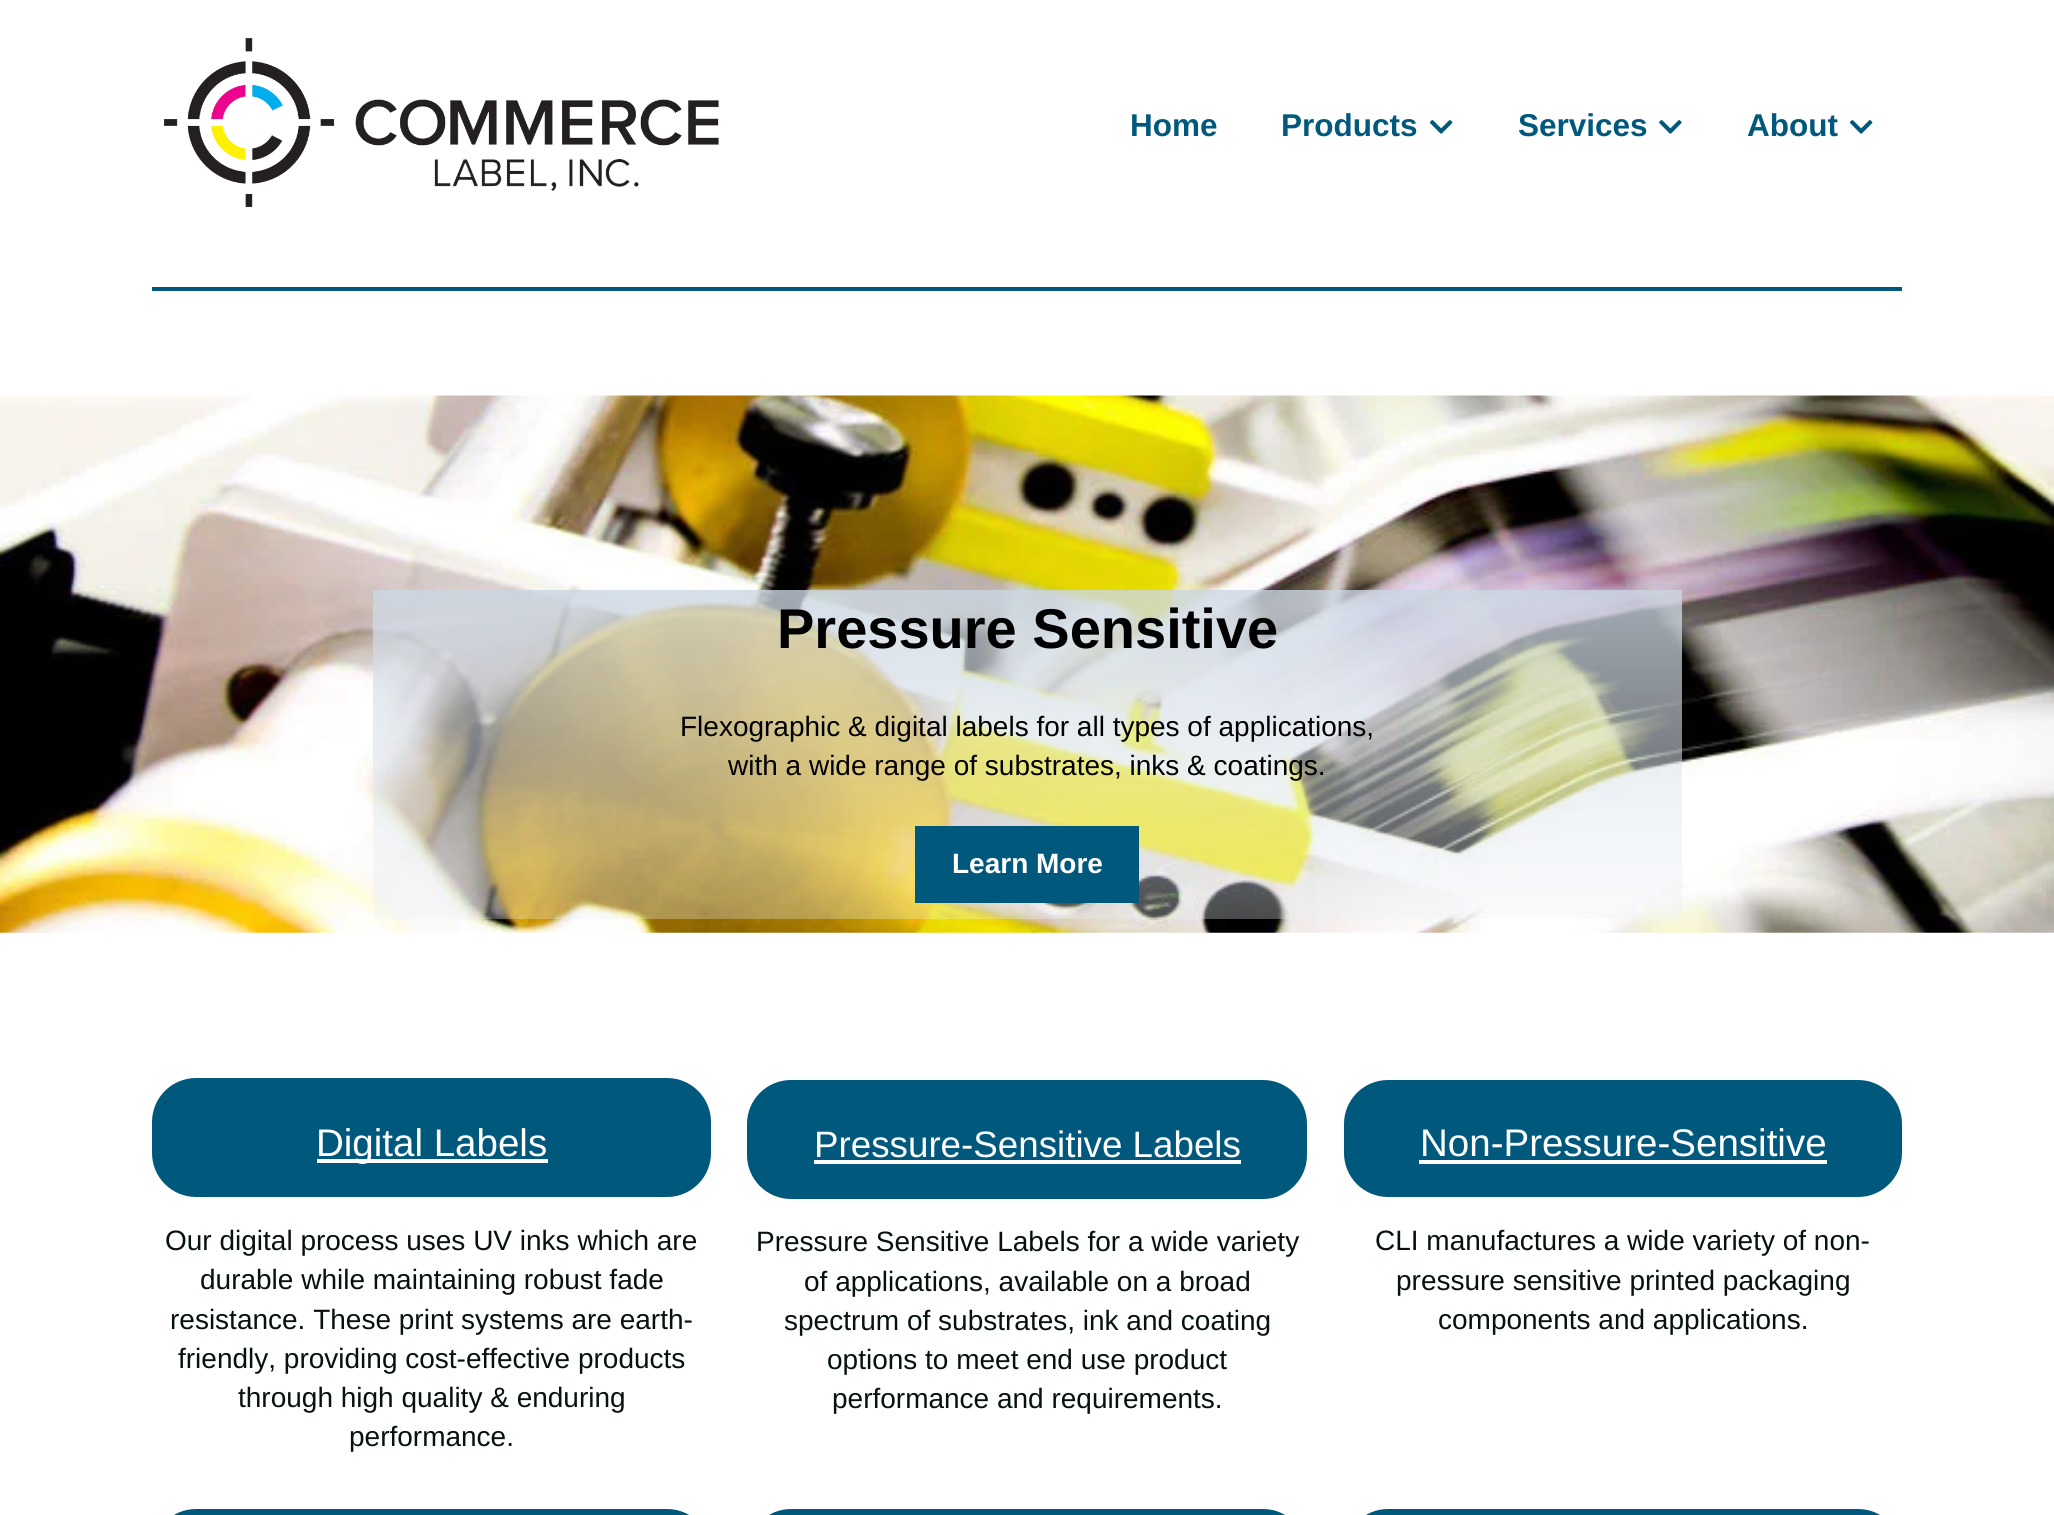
import math
import cairo

surface = cairo.ImageSurface(cairo.FORMAT_RGB24, 2054, 1515)
c = cairo.Context(surface)
options = cairo.FontOptions()
options.set_hint_metrics(cairo.HINT_METRICS_OFF)
options.set_hint_style(cairo.HINT_STYLE_NONE)
c.set_font_options(options)
c.set_miter_limit(4)
def C(code):
 c.set_source_rgb(*(v / 255 for v in bytes.fromhex(code[-6:])))
def F(family, size, italic, bold):
 c.select_font_face(family, cairo.FONT_SLANT_ITALIC if italic else cairo.FONT_SLANT_NORMAL, cairo.FONT_WEIGHT_BOLD if bold else cairo.FONT_WEIGHT_NORMAL)
 c.set_font_size(size)
def T(x, y, s):
 c.move_to(x, y)
 c.show_text(s)
def R(x, y, w, h):
 c.rectangle(x, y, w, h)
 c.fill()
def Q(x, y, w, h, r):
 c.new_sub_path()
 for i, (u, v) in enumerate([(x + w - r, y + h - r), (x + r, y + h - r), (x + r, y + r), (x + w - r, y + r)]):
  c.arc(u, v, r, i * math.pi / 2, (i + 1) * math.pi / 2)
 c.close_path()
def I(path, x, y, w, h):
 c.save()
 c.set_source_surface(cairo.ImageSurface.create_from_png(path), x, y)
 c.rectangle(x, y, w, h)
 c.fill()
 c.restore()
C('ffffff')
c.paint()
I('1.png',164,38,555,169)
F('Liberation Sans',31.5,0,1)
C('00587c')
T(1130,136,'Home')
T(1281,136,'Products')
I('2.png',1429,120,24,14)
T(1518,136,'Services')
I('3.png',1659,120,23,14)
T(1747,136,'About')
I('2.png',1849,120,24,14)
R(152,287,1750,4)
I('4.png',0,395,2054,538)
F('Liberation Sans',56,0,1)
C('000000')
T(777,648,'Pressure Sensitive')
F('Liberation Sans',28,0,0)
T(680,736,'Flexographic & digital labels for all types of applications,')
T(728,775,'with a wide range of substrates, inks & coatings.')
C('00587c')
R(915,826,224,77)
F('Liberation Sans',28,0,1)
C('ffffff')
T(952,873,'Learn More')
C('00587c')
Q(152,1078,559,119,44)
c.fill()
C('ffffff')
R(317,1159,231,4)
F('Liberation Sans',38.5,0,0)
T(316,1156,'Digital Labels')
F('Liberation Sans',28,0,0)
C('071110')
T(165,1250,'Our digital process uses UV inks which are')
T(200,1289,'durable while maintaining robust fade')
T(170,1329,'resistance. These print systems are earth-')
T(178,1368,'friendly, providing cost-effective products')
T(238,1407,'through high quality & enduring')
T(349,1446,'performance.')
C('00587c')
Q(747,1080,560,119,44)
c.fill()
F('Liberation Sans',36.75,0,0)
C('ffffff')
T(814,1157,'Pressure-Sensitive Labels')
R(814,1160,427,4)
F('Liberation Sans',28,0,0)
C('071110')
T(756,1251,'Pressure Sensitive Labels for a wide variety')
T(804,1291,'of applications, available on a broad')
T(784,1330,'spectrum of substrates, ink and coating')
T(827,1369,'options to meet end use product')
T(832,1408,'performance and requirements.')
C('00587c')
Q(1344,1080,558,117,44)
c.fill()
F('Liberation Sans',38.5,0,0)
C('ffffff')
T(1420,1156,'Non-Pressure-Sensitive')
R(1419,1160,408,4)
F('Liberation Sans',28,0,0)
C('071110')
T(1375,1250,'CLI manufactures a wide variety of non-')
T(1396,1290,'pressure sensitive printed packaging')
T(1438,1329,'components and applications.')
C('00587c')
Q(152,1509,559,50,44)
c.fill()
Q(747,1509,560,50,44)
c.fill()
Q(1344,1509,558,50,44)
c.fill()
surface.write_to_png('o.png')
